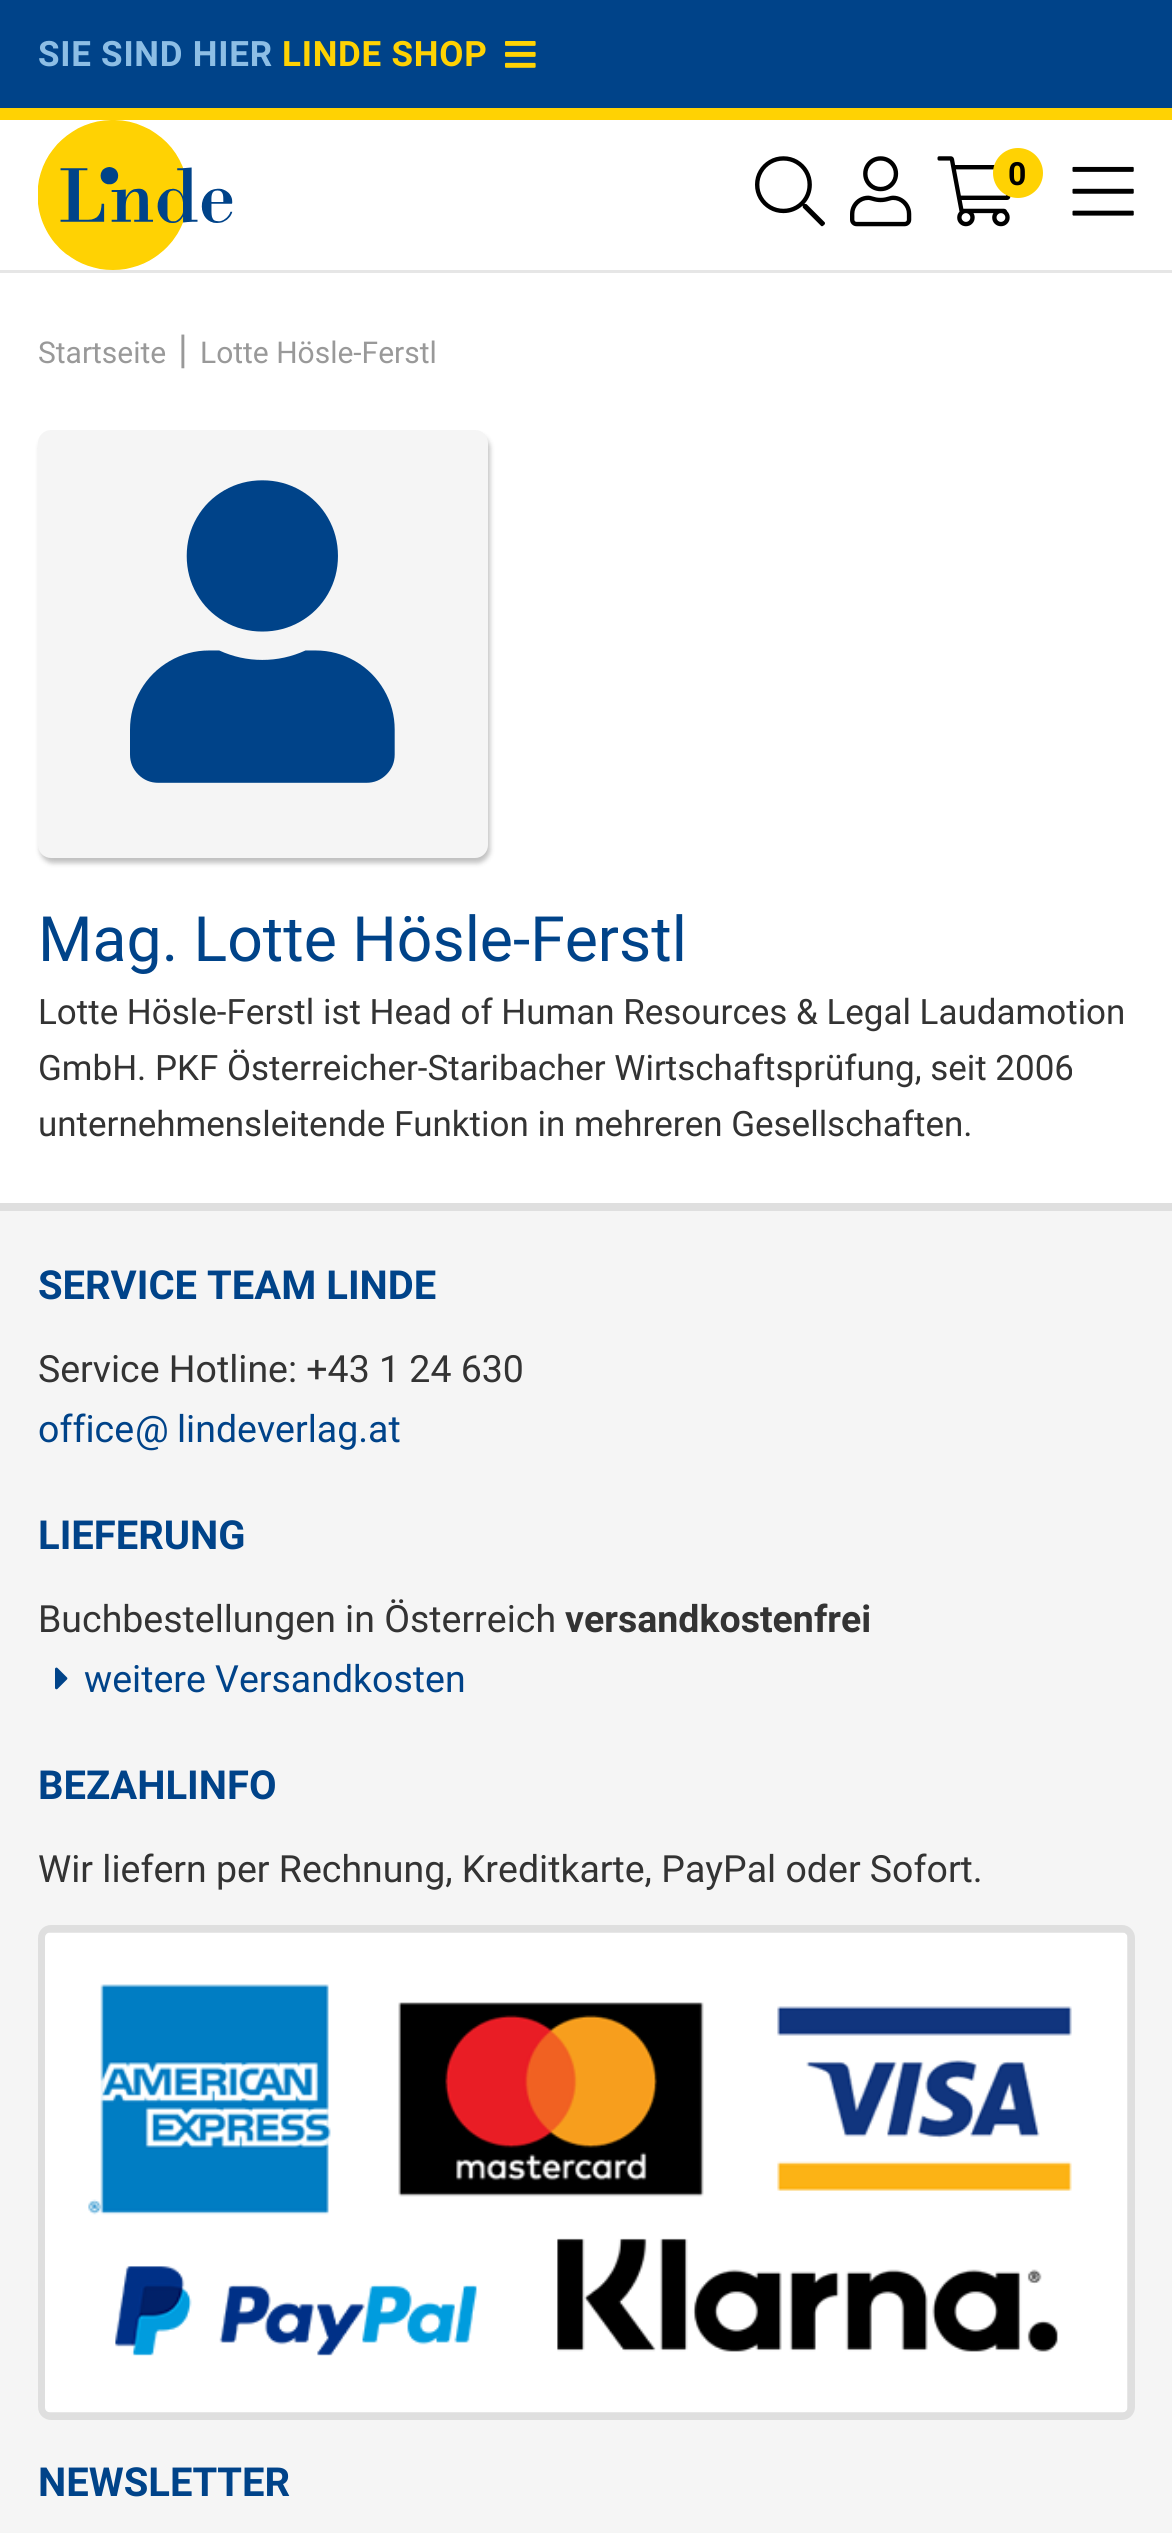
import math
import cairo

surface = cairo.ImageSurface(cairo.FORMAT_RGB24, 1172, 2533)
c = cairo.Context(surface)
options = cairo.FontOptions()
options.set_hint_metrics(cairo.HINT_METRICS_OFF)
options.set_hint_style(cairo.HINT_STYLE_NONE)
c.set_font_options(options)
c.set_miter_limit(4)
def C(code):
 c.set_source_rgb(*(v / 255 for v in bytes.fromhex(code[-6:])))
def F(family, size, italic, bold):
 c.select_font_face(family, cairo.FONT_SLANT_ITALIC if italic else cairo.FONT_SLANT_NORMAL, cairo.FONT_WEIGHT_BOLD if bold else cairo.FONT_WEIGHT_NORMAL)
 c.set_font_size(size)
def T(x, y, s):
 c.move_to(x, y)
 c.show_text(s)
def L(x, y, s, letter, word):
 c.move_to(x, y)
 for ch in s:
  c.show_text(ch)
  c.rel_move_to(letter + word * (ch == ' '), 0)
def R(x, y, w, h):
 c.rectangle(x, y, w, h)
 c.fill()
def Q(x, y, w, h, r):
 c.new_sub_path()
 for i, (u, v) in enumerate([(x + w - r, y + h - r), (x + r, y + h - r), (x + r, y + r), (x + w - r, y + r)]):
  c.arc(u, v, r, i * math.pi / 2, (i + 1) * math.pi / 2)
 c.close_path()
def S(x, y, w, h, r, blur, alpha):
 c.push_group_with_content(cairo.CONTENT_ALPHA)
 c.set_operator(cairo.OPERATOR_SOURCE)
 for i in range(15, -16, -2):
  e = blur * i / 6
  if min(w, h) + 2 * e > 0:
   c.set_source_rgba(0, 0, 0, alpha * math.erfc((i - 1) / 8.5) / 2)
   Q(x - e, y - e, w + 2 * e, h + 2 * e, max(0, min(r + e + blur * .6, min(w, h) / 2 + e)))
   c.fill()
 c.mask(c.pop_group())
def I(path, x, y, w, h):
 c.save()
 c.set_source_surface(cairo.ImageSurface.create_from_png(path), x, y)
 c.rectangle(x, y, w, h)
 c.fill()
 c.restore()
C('ffffff')
c.paint()
C('004389')
R(0,0,1172,108)
C('ffd203')
R(0,108,1172,12)
F('Roboto',35,0,1)
C('8dbee5')
L(38,66,'SIE SIND HIER',.75,0)
C('ffd203')
L(282,66,'LINDE SHOP',.75,0)
I('1.png',505,41,31,27)
I('2.png',38,120,195,150)
I('3.png',755,156,70,71)
I('4.png',850,156,62,71)
I('5.png',937,156,74,71)
c.arc(1018,173,25,0,2 * math.pi)
c.fill()
F('Roboto',32,0,1)
C('000000')
T(1008,185,'0')
I('6.png',1072,166,62,50)
C('e6e6e6')
R(0,270,1172,3)
F('Roboto',30,0,0)
C('999999')
T(38,363,'Startseite')
F('Roboto',40,0,0)
T(178,363,'|')
F('Roboto',30,0,0)
T(200,363,'Lotte Hösle-Ferstl')
C('f5f5f5')
R(0,1211,1172,1322)
C('000000')
S(40,435,450,428,13,2.5,.25)
C('f5f5f5')
Q(38,430,450,428,13)
c.fill()
I('7.png',130,480,265,303)
F('Roboto',62.5,0,0)
C('004389')
T(38,961,'Mag. Lotte Hösle-Ferstl')
F('Roboto',35,0,0)
C('333333')
T(38,1024,'Lotte Hösle-Ferstl ist Head of Human Resources & Legal Laudamotion')
T(38,1080,'GmbH. PKF Österreicher-Staribacher Wirtschaftsprüfung, seit 2006')
T(38,1136,'unternehmensleitende Funktion in mehreren Gesellschaften.')
C('dfdfdf')
R(0,1203,1172,8)
F('Roboto',40,0,1)
C('004389')
T(38,1299,'SERVICE TEAM LINDE')
F('Roboto',37.5,0,0)
C('333333')
T(38,1382,'Service Hotline: +43 1 24 630')
C('004389')
T(38,1442,'office')
T(135,1442,'@')
T(177,1442,'lindeverlag.at')
F('Roboto',40,0,1)
T(38,1549,'LIEFERUNG')
F('Roboto',37.5,0,0)
C('333333')
T(38,1632,'Buchbestellungen in Österreich')
F('Roboto',37.5,0,1)
T(565,1632,'versandkostenfrei')
I('8.png',55,1667,13,23)
F('Roboto',37.5,0,0)
C('004389')
T(84,1692,'weitere Versandkosten')
F('Roboto',40,0,1)
T(38,1799,'BEZAHLINFO')
F('Roboto',37.5,0,0)
C('333333')
T(38,1882,'Wir liefern per Rechnung, Kreditkarte, PayPal oder Sofort.')
Q(42,1929,1089,487,9)
C('dfdfdf')
c.set_line_width(8)
c.stroke()
I('9.png',45,1932,1083,481)
F('Roboto',40,0,1)
C('004389')
T(38,2496,'NEWSLETTER')
surface.write_to_png('o.png')
